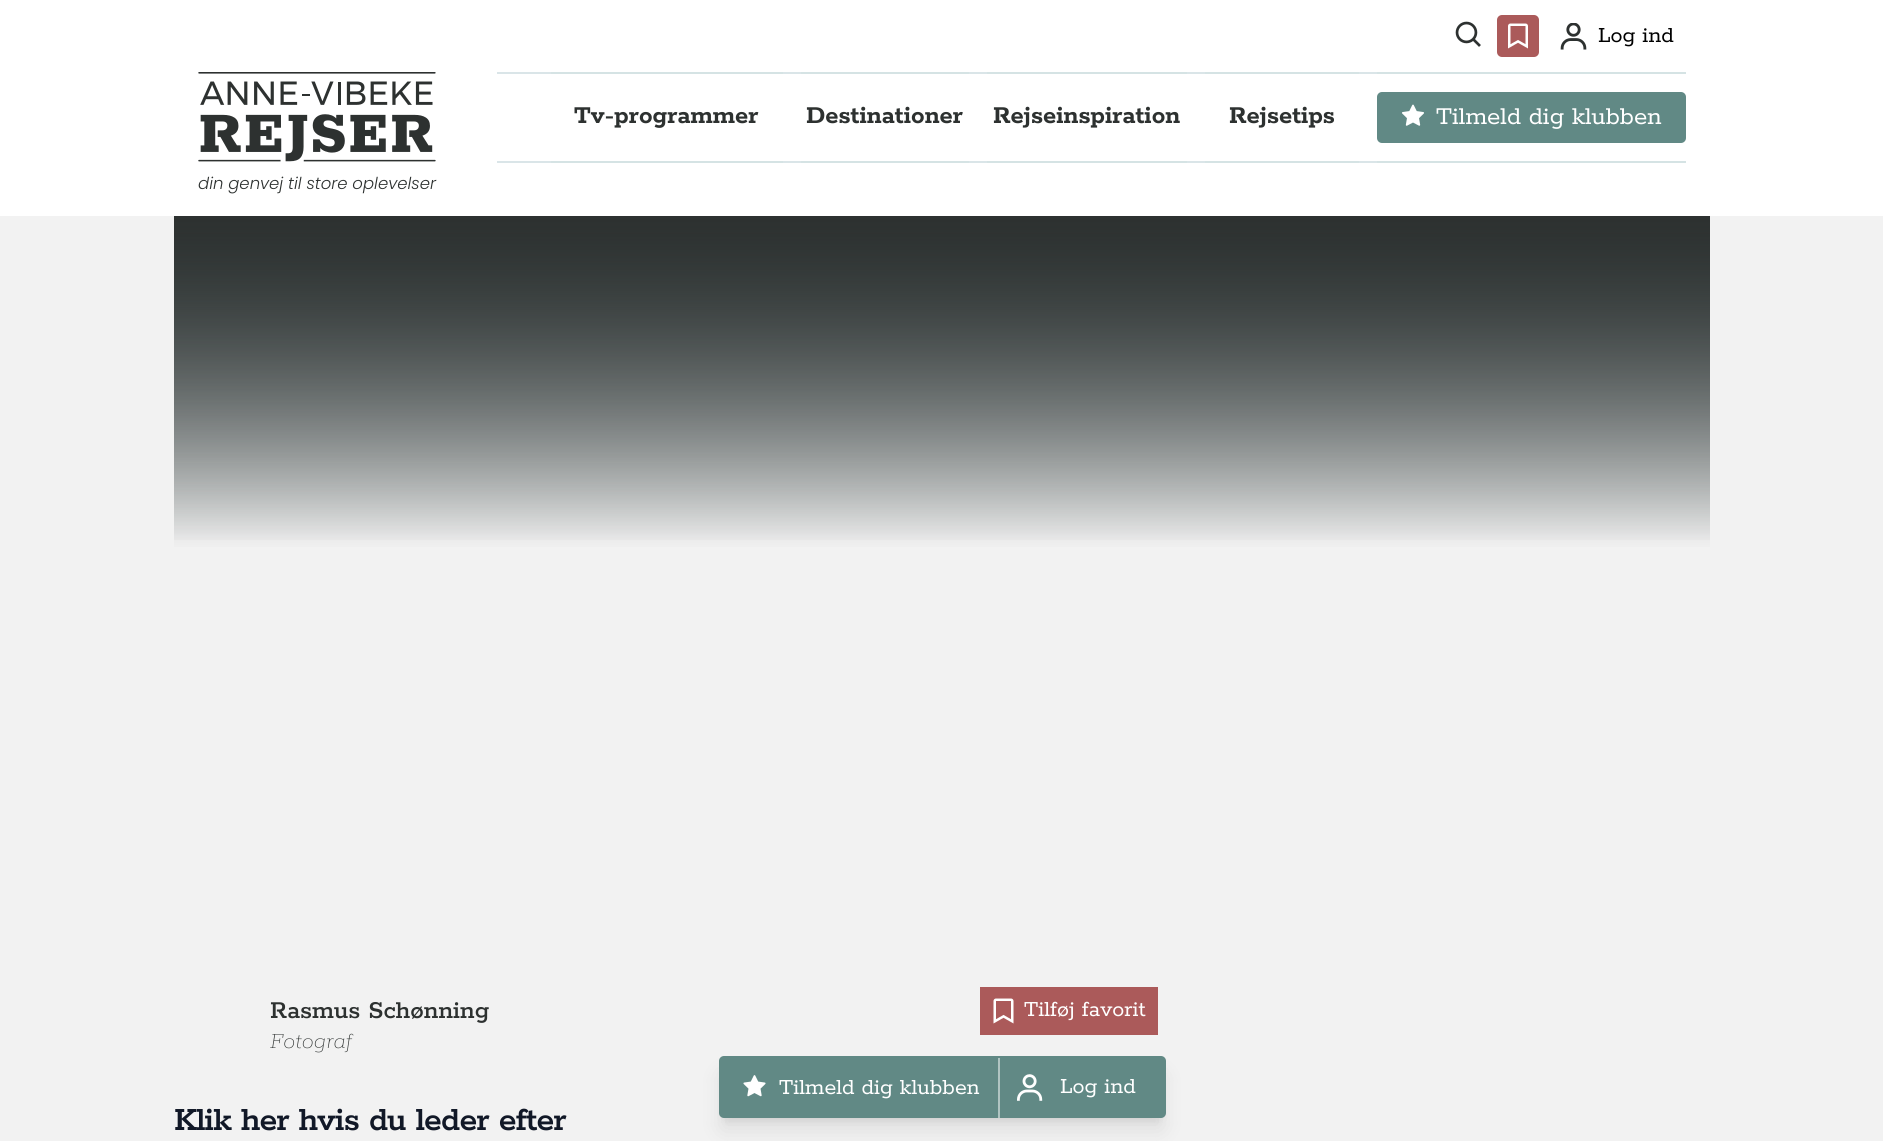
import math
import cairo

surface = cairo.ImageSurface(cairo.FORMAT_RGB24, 1883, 1141)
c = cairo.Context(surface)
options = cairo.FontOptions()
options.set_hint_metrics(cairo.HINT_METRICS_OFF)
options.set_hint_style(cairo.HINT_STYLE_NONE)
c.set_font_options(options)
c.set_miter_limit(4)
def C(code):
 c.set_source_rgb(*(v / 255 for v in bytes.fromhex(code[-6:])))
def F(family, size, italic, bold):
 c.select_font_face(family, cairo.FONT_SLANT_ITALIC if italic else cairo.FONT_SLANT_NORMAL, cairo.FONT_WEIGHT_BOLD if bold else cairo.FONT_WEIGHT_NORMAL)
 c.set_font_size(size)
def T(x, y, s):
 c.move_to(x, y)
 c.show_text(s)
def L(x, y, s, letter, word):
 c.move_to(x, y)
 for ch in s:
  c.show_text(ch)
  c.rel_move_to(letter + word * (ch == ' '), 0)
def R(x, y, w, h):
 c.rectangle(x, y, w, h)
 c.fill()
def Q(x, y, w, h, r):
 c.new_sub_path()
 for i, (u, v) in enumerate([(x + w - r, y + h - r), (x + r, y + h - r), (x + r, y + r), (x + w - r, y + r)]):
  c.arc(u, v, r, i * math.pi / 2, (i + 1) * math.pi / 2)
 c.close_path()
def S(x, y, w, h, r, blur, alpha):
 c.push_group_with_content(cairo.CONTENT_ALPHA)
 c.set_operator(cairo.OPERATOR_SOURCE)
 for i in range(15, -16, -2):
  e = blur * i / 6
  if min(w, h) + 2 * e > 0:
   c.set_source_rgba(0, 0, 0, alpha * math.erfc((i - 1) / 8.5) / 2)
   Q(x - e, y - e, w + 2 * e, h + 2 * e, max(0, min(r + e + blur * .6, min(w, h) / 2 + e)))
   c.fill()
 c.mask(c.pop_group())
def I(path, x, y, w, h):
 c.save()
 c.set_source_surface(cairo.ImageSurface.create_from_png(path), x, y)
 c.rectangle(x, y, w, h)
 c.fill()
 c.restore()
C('ffffff')
c.paint()
I('1.png',1455,21,26,26)
C('ab5a5a')
Q(1497,15,42,42,5)
c.fill()
I('2.png',1508,23,20,26)
I('3.png',1560,23,27,27)
F('Rokkitt',24,0,0)
C('000000')
T(1598,42,'Log ind')
C('dae5e8')
R(497,72,880,2)
R(497,161,880,2)
C('d5e3e4')
R(551,72,232,2)
R(551,161,232,2)
F('Rokkitt',27,0,1)
C('2d3130')
T(574,123,'Tv-programmer')
C('d5e3e4')
R(801,72,168,2)
R(801,161,168,2)
C('2d3130')
T(806,123,'Destinationer')
C('d5e3e4')
R(987,72,200,2)
R(987,161,200,2)
C('2d3130')
T(993,123,'Rejseinspiration')
C('d5e3e4')
R(1205,72,154,2)
R(1205,161,154,2)
C('2d3130')
T(1229,123,'Rejsetips')
C('d5e3e4')
R(1377,72,309,2)
R(1377,161,309,2)
C('618985')
Q(1377,92,309,51,5)
c.fill()
I('4.png',1402,104,22,22)
F('Rokkitt',27,0,0)
C('ffffff')
T(1436,124,'Tilmeld dig klubben')
I('5.png',198,72,238,90)
F('Poppins Light',16.5,1,0)
C('2d3130')
T(198,189,'din genvej til store oplevelser')
C('f2f2f2')
R(0,216,1883,925)
gradient = cairo.LinearGradient(942,216,942,879)
gradient.add_color_stop_rgba(0,0.235,0.294,0.298,1)
gradient.add_color_stop_rgba(.5,0.941,0.941,0.941,1)
gradient.add_color_stop_rgba(1,0.941,0.941,0.941,1)
c.set_source(gradient)
R(174,218,1536,329)
gradient = cairo.LinearGradient(942,216,942,879)
gradient.add_color_stop_rgba(0,0.176,0.192,0.188,1)
gradient.add_color_stop_rgba(.5,0.176,0.192,0.188,0)
gradient.add_color_stop_rgba(1,0,0,0,0)
c.set_source(gradient)
R(174,216,1536,324)
F('Rokkitt Medium',27,0,0)
C('2d3130')
T(270,1018,'Rasmus Schønning')
F('Rokkitt Thin',24,1,0)
T(270,1048,'Fotograf')
C('ab5a5a')
R(980,987,178,48)
I('6.png',993,998,21,26)
F('Rokkitt',24,0,0)
C('ffffff')
T(1024,1016,'Tilføj favorit')
F('Rokkitt SemiBold',36,0,0)
C('111827')
L(174,1130,'Klik her hvis du leder efter',-.75,0)
C('000000')
S(725,1068,435,50,0,4.5,.1)
S(723,1076,438,52,0,11,.1)
C('618985')
Q(719,1056,447,62,5)
c.fill()
I('7.png',743,1075,23,22)
F('Rokkitt',24,0,0)
C('ffffff')
T(779,1094,'Tilmeld dig klubben')
C('b0c4c2')
R(998,1058,2,60)
I('8.png',1017,1074,26,27)
C('ffffff')
T(1060,1093,'Log ind')
surface.write_to_png('o.png')
